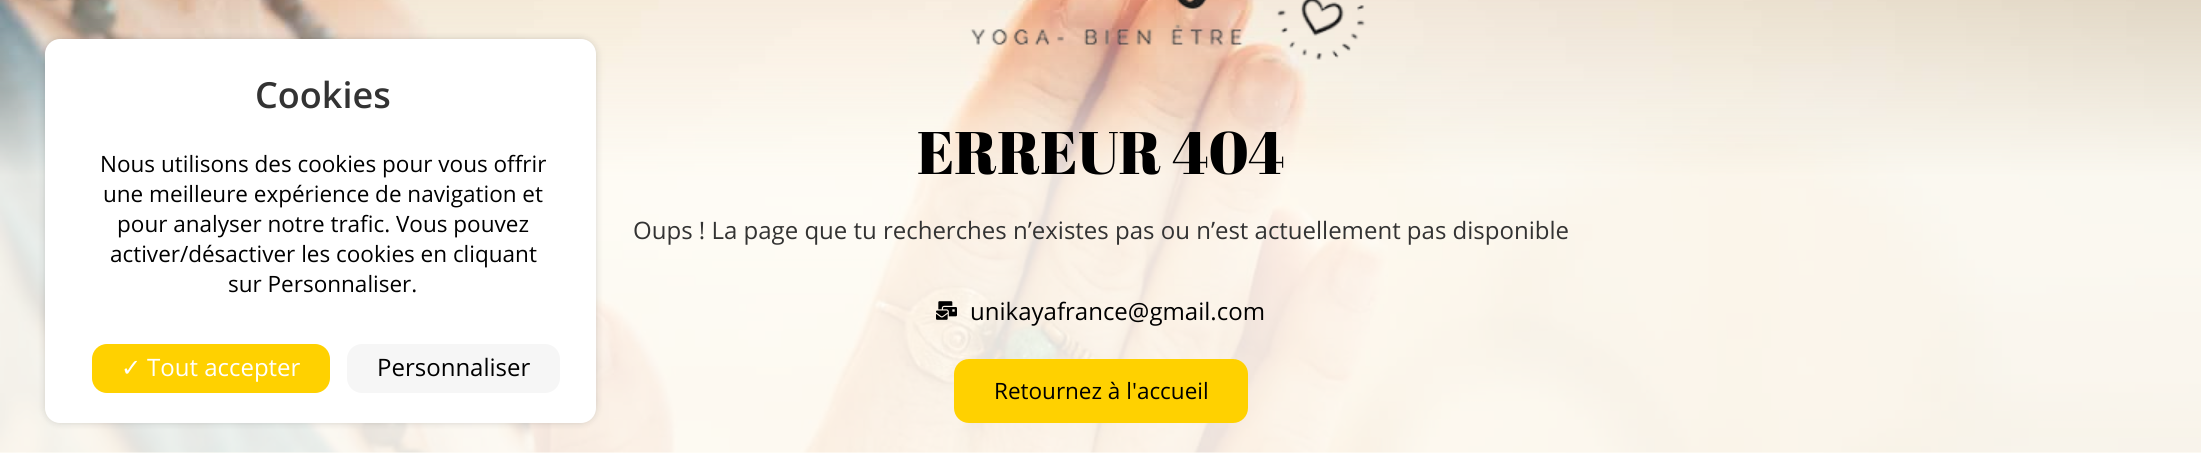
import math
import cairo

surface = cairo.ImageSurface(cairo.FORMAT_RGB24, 2201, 453)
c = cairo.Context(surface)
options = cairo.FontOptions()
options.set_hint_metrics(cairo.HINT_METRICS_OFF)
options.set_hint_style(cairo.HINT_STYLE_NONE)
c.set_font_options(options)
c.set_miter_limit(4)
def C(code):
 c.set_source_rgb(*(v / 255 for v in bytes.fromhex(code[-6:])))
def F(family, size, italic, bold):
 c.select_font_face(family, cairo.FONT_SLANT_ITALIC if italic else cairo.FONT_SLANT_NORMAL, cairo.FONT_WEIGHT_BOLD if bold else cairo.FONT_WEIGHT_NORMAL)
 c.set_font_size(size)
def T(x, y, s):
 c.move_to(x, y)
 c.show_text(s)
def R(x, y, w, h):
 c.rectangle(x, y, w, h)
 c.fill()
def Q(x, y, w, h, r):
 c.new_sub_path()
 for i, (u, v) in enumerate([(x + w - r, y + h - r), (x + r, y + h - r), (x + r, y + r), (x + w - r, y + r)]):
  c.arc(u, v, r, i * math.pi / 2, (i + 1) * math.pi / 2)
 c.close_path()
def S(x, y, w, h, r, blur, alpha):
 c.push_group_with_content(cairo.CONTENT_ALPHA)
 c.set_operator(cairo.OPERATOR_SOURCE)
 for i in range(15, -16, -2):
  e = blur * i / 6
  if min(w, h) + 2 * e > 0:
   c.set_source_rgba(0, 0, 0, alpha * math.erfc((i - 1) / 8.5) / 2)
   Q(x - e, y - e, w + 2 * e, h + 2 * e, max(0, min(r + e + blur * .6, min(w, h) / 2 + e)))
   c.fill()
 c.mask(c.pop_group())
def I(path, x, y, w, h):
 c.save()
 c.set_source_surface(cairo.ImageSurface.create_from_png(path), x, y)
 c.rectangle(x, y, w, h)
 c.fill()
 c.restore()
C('fffef8')
c.paint()
I('1.png',0,0,2201,453)
gradient = cairo.LinearGradient(1101,-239,1101,453)
gradient.add_color_stop_rgba(.15,1,0.996,0.973,0)
gradient.add_color_stop_rgba(.6,1,0.996,0.973,.89)
c.set_source(gradient)
R(0,0,2201,453)
C('000000')
S(45,39,551,384,15,4,.15)
C('ffffff')
Q(45,39,551,384,15)
c.fill()
F('Open Sans SemiBold',36,0,0)
C('333333')
T(255,108,'Cookies')
F('Open Sans',22.5,0,0)
C('000000')
T(100,172,'Nous utilisons des cookies pour vous offrir')
T(103,202,'une meilleure expérience de navigation et')
T(117,232,'pour analyser notre trafic. Vous pouvez')
T(110,262,'activer/désactiver les cookies en cliquant')
T(228,292,'sur Personnaliser.')
C('ffd100')
Q(92,344,238,49,15)
c.fill()
F('DejaVu Sans',24,0,0)
C('ffffff')
T(121,376,'✓')
F('Open Sans',24,0,0)
T(147,376,'Tout accepter')
C('f6f6f6')
Q(347,344,213,49,15)
c.fill()
C('000000')
T(377,376,'Personnaliser')
I('2.png',970,0,396,60)
F('Abril Fatface',60,0,0)
T(917,174,'ERREUR 404')
F('Open Sans',24,0,0)
C('333333')
T(633,239,'Oups ! La page que tu recherches n’existes pas ou n’est actuellement pas disponible')
I('3.png',936,301,21,19)
C('000000')
T(970,320,'unikayafrance@gmail.com')
C('ffd100')
Q(955.5,360.5,291,61,13.5)
c.fill_preserve()
c.set_line_width(3)
c.stroke()
F('Open Sans',22.5,0,0)
C('000000')
T(994,399,'Retournez à l\'accueil')
surface.write_to_png('o.png')
